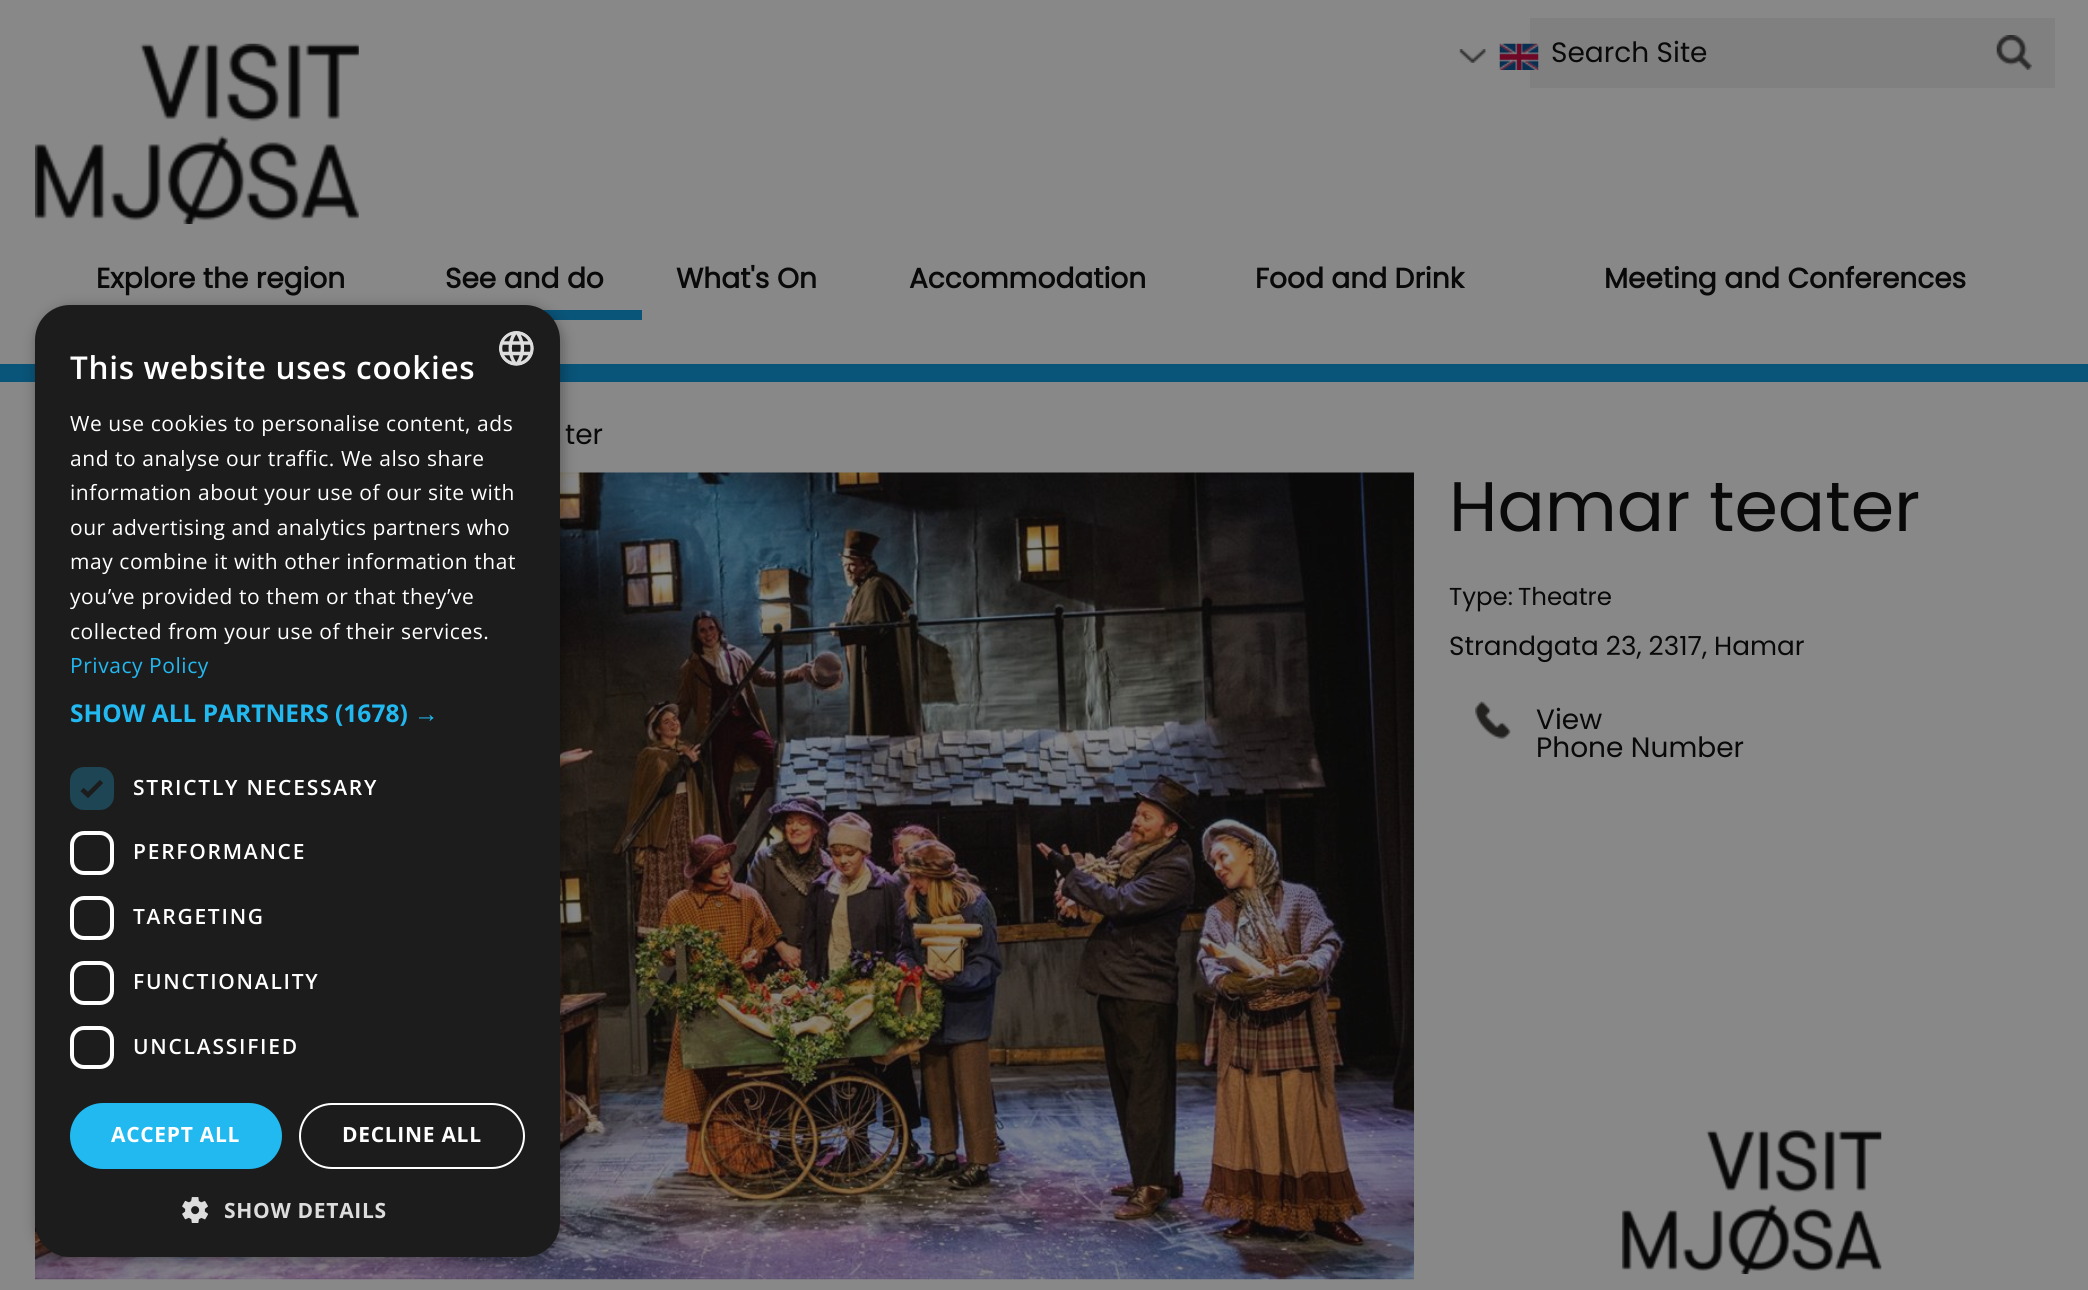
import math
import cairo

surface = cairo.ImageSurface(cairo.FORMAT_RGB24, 2088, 1290)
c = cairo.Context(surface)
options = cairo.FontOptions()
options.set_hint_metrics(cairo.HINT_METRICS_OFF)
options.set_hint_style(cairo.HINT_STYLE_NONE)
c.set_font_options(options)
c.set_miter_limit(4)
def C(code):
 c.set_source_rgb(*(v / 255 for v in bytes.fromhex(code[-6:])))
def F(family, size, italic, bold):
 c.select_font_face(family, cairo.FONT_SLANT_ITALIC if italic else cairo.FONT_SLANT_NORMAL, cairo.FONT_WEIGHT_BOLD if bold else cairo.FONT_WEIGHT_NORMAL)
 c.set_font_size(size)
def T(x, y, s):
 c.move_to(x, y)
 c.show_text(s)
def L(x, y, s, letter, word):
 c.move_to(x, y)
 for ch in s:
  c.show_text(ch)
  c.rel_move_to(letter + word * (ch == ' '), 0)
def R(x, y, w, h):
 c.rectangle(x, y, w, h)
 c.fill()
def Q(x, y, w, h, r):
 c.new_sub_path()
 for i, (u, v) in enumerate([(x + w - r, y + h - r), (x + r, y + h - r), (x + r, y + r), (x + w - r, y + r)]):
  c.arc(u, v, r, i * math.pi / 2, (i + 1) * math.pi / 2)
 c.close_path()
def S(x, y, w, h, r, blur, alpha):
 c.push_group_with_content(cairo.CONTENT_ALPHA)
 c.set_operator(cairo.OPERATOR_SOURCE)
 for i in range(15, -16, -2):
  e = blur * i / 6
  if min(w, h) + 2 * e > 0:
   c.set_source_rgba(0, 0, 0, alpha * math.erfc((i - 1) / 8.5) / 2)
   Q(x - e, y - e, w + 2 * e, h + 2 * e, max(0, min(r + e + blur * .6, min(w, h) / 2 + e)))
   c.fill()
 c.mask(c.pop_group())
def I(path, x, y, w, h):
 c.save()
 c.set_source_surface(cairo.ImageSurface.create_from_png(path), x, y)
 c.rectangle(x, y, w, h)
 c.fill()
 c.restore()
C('888888')
c.paint()
C('095479')
R(0,364,2088,18)
I('1.png',35,43,324,181)
C('808080')
R(1530,18,525,70)
I('2.png',1499,43,40,27)
I('3.png',1459,49,27,14)
F('Poppins',28,0,0)
C('090909')
T(1551,62,'Search Site')
I('4.png',1996,35,36,35)
F('Poppins',28,0,1)
T(96,288,'Explore the region')
T(445,288,'See and do')
C('095479')
R(543,310,99,10)
C('090909')
T(676,288,'What\'s On')
T(909,288,'Accommodation')
T(1255,288,'Food and Drink')
T(1604,288,'Meeting and Conferences')
F('Poppins',28,0,0)
T(565,444,'ter')
I('5.png',35,472,1379,808)
F('Poppins',70,0,0)
T(1449,531,'Hamar teater')
F('Poppins',24.5,0,0)
T(1449,605,'Type:')
T(1518,605,'Theatre')
F('Poppins',26.25,0,0)
T(1449,655,'Strandgata 23, 2317, Hamar')
I('6.png',1475,701,36,38)
F('Poppins',28,0,0)
T(1536,729,'View')
T(1536,757,'Phone Number')
I('7.png',1622,1130,260,144)
C('000000')
S(37,308,525,952,35,7,.35)
C('1c1c1c')
Q(35,305,525,952,35)
c.fill()
F('Open Sans SemiBold',31.5,0,0)
C('ffffff')
L(70,379,'This website uses cookies',.7,0)
I('8.png',499,331,35,35)
F('Open Sans',21,0,0)
L(70,431,'We use cookies to personalise content, ads',.55,0)
L(70,466,'and to analyse our traffic. We also share',.55,0)
L(70,500,'information about your use of our site with',.55,0)
L(70,535,'our advertising and analytics partners who',.55,0)
L(70,569,'may combine it with other information that',.55,0)
L(70,604,'you’ve provided to them or that they’ve',.55,0)
L(70,639,'collected from your use of their services.',.55,0)
C('22b8f0')
L(70,673,'Privacy Policy',.55,0)
F('Open Sans',24.5,0,1)
T(70,722,'SHOW ALL PARTNERS (1678)')
F('Liberation Sans',24.5,0,1)
T(414,722,'→')
C('1e4553')
Q(70,767,44,43,14)
c.fill()
c.new_path()
c.move_to(82,789.5)
c.line_to(88,795)
c.line_to(101.5,781.5)
C('1c1c1c')
c.set_line_width(4.6)
c.stroke()
F('Open Sans SemiBold',21,0,0)
C('ffffff')
L(133,795,'STRICTLY NECESSARY',1.75,0)
Q(72,833,40,40,12)
c.set_line_width(4)
c.stroke()
L(133,859,'PERFORMANCE',1.75,0)
Q(72,898,40,40,12)
c.stroke()
L(133,924,'TARGETING',1.75,0)
Q(72,963,40,40,12)
c.stroke()
L(133,989,'FUNCTIONALITY',1.75,0)
Q(72,1028,40,39,12)
c.stroke()
L(133,1054,'UNCLASSIFIED',1.75,0)
C('22b8f0')
Q(70,1103,212,66,33)
c.fill()
F('Open Sans',21,0,1)
C('ffffff')
L(111,1142,'ACCEPT ALL',.7,0)
Q(300,1104,224,64,32)
c.set_line_width(2)
c.stroke()
L(342,1142,'DECLINE ALL',.7,0)
I('9.png',182,1197,26,26)
C('dddddd')
L(224,1218,'SHOW DETAILS',.7,0)
surface.write_to_png('o.png')
